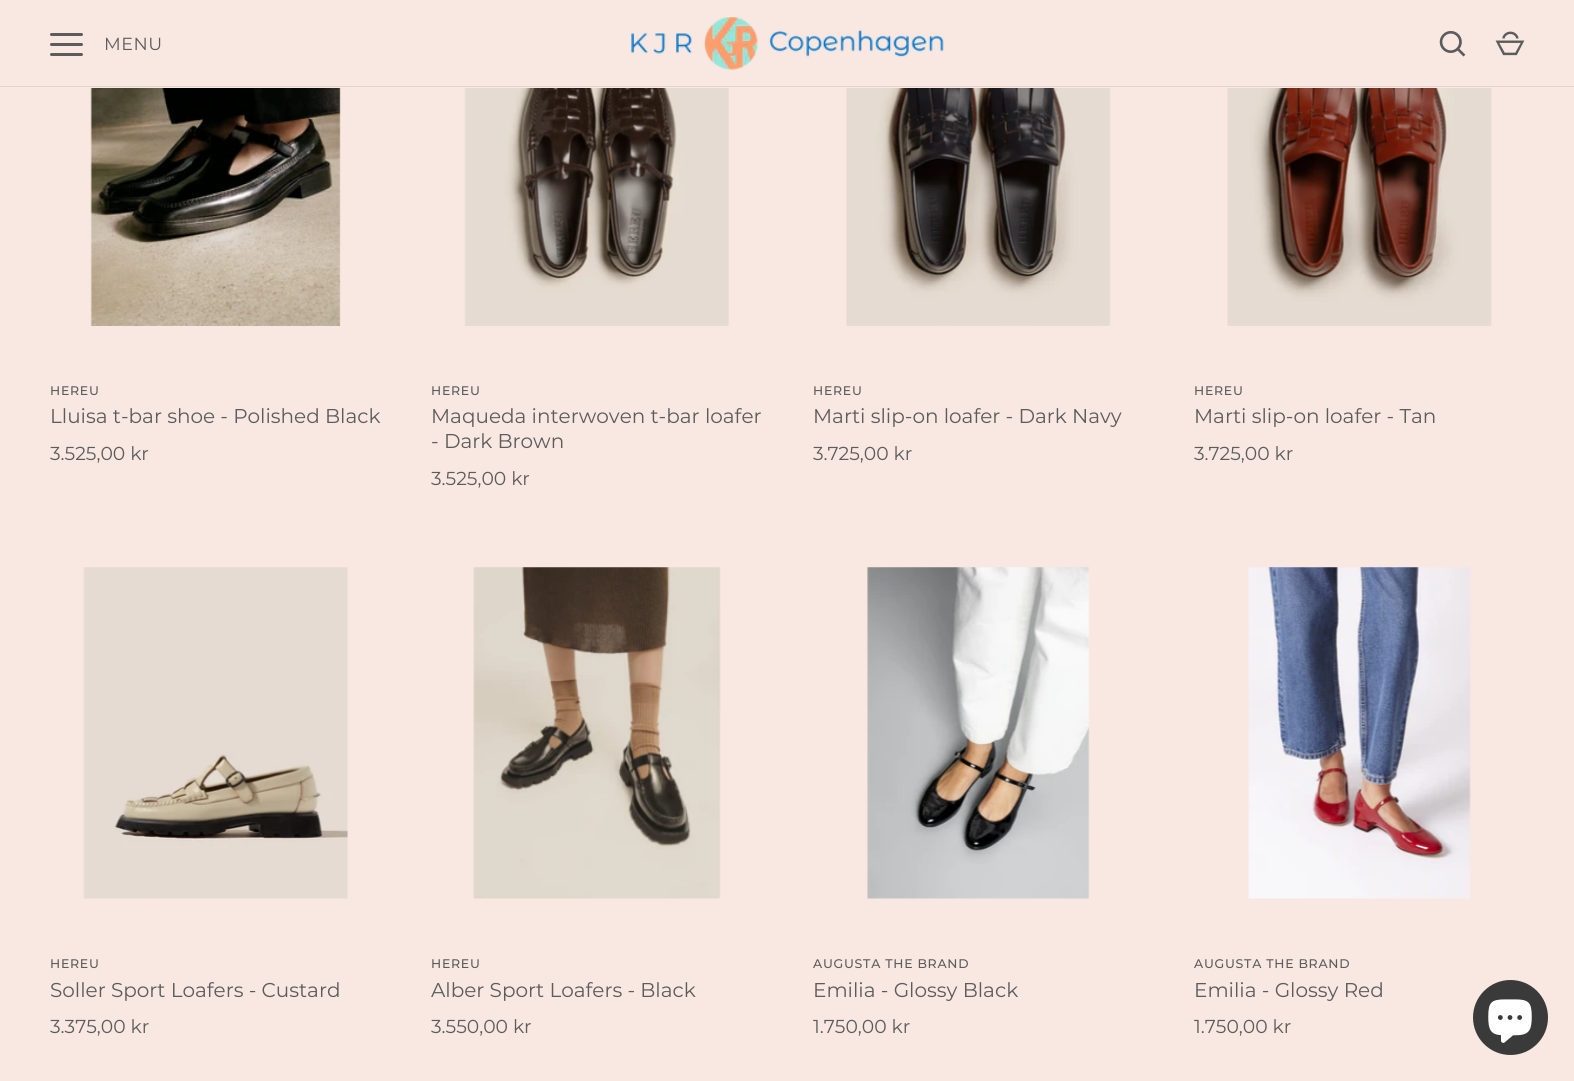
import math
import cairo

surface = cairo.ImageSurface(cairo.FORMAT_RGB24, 1574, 1081)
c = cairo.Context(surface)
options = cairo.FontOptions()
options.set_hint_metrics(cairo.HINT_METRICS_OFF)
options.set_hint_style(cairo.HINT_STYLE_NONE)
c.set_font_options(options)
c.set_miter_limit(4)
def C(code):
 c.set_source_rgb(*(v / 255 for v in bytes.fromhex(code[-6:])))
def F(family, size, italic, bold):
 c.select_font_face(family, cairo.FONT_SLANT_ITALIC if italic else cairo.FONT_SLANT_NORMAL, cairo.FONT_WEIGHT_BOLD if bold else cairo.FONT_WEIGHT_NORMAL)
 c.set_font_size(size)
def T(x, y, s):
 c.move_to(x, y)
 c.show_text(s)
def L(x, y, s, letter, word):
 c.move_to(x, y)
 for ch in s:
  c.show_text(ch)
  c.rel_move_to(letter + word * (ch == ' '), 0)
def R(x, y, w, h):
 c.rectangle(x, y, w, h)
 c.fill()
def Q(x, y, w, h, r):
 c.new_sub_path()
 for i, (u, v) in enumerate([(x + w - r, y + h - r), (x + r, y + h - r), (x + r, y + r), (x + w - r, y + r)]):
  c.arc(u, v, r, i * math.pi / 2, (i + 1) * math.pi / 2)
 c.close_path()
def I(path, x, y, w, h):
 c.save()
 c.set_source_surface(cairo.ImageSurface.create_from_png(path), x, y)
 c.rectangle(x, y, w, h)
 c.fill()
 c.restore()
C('f8e8e1')
c.paint()
C('5c5c5c')
Q(50,33,33,3,1.5)
c.fill()
Q(50,43,33,3,1.5)
c.fill()
Q(50,53,33,3,1.5)
c.fill()
F('Montserrat',17.5,0,0)
L(104,50,'MENU',.5,0)
I('1.png',631,17,313,53)
I('2.png',1439,31,27,26)
I('3.png',1495,31,30,25)
C('e1d3cd')
R(0,86,1574,1)
I('4.png',90,88,251,238)
F('Montserrat Medium',12.5,0,0)
C('5c5c5c')
L(50,395,'HEREU',.75,0)
F('Montserrat',20,0,0)
T(50,423,'Lluisa t-bar shoe - Polished Black')
F('Montserrat',18.75,0,0)
T(50,460,'3.525,00 kr')
I('5.png',464,88,265,238)
F('Montserrat Medium',12.5,0,0)
L(431,395,'HEREU',.75,0)
F('Montserrat',20,0,0)
T(431,423,'Maqueda interwoven t-bar loafer')
T(431,448,'- Dark Brown')
F('Montserrat',18.75,0,0)
T(431,485,'3.525,00 kr')
I('6.png',846,88,265,238)
F('Montserrat Medium',12.5,0,0)
L(813,395,'HEREU',.75,0)
F('Montserrat',20,0,0)
T(813,423,'Marti slip-on loafer - Dark Navy')
F('Montserrat',18.75,0,0)
T(813,460,'3.725,00 kr')
I('7.png',1227,88,265,238)
F('Montserrat Medium',12.5,0,0)
L(1194,395,'HEREU',.75,0)
F('Montserrat',20,0,0)
T(1194,423,'Marti slip-on loafer - Tan')
F('Montserrat',18.75,0,0)
T(1194,460,'3.725,00 kr')
I('8.png',83,567,265,332)
F('Montserrat Medium',12.5,0,0)
L(50,968,'HEREU',.75,0)
F('Montserrat',20,0,0)
T(50,997,'Soller Sport Loafers - Custard')
F('Montserrat',18.75,0,0)
T(50,1033,'3.375,00 kr')
I('9.png',473,567,248,332)
F('Montserrat Medium',12.5,0,0)
L(431,968,'HEREU',.75,0)
F('Montserrat',20,0,0)
T(431,997,'Alber Sport Loafers - Black')
F('Montserrat',18.75,0,0)
T(431,1033,'3.550,00 kr')
I('10.png',867,567,223,332)
F('Montserrat Medium',12.5,0,0)
L(813,968,'AUGUSTA THE BRAND',.75,0)
F('Montserrat',20,0,0)
T(813,997,'Emilia - Glossy Black')
F('Montserrat',18.75,0,0)
T(813,1033,'1.750,00 kr')
I('11.png',1248,567,223,332)
F('Montserrat Medium',12.5,0,0)
L(1194,968,'AUGUSTA THE BRAND',.75,0)
F('Montserrat',20,0,0)
T(1194,997,'Emilia - Glossy Red')
F('Montserrat',18.75,0,0)
T(1194,1033,'1.750,00 kr')
C('3a3a3a')
c.new_path()
c.arc(1510.5,1017.5,37.5,0,2 * math.pi)
c.fill()
I('12.png',1488,999,44,44)
surface.write_to_png('o.png')
